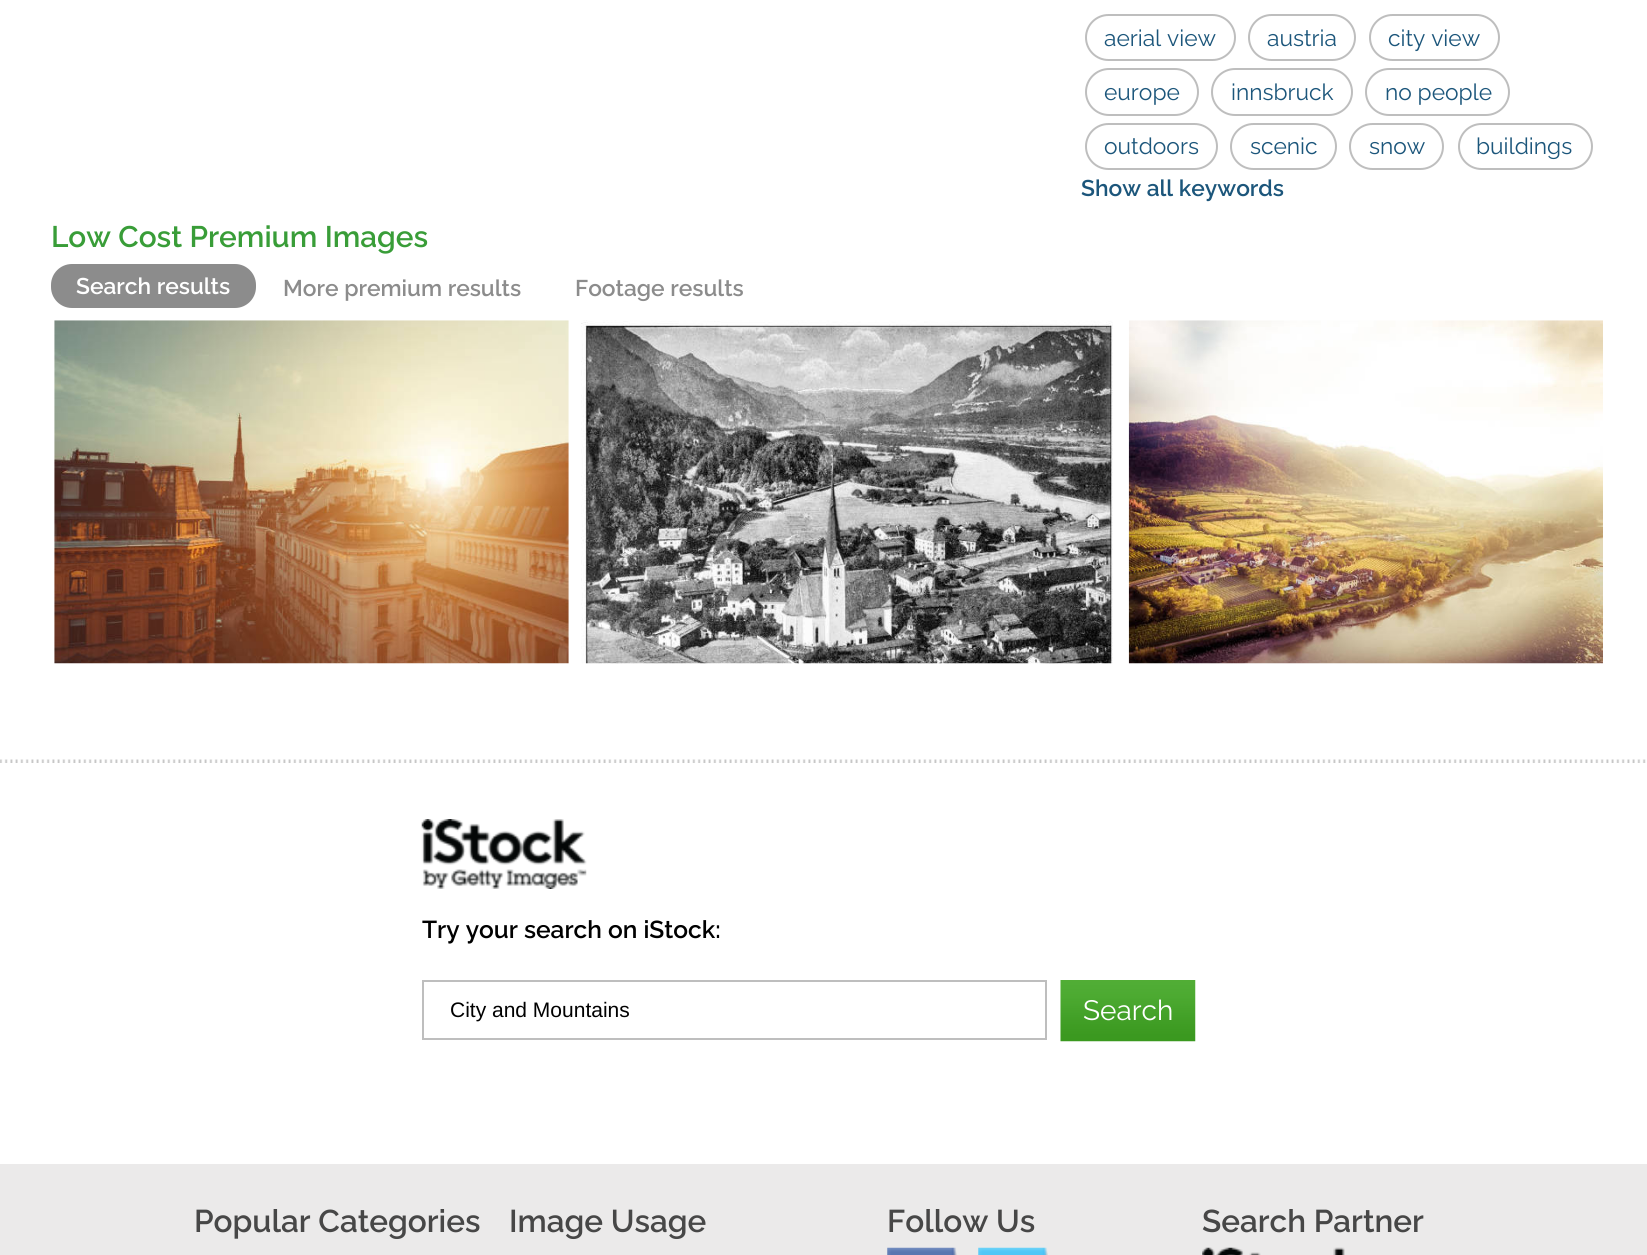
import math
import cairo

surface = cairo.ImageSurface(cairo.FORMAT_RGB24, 1647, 1255)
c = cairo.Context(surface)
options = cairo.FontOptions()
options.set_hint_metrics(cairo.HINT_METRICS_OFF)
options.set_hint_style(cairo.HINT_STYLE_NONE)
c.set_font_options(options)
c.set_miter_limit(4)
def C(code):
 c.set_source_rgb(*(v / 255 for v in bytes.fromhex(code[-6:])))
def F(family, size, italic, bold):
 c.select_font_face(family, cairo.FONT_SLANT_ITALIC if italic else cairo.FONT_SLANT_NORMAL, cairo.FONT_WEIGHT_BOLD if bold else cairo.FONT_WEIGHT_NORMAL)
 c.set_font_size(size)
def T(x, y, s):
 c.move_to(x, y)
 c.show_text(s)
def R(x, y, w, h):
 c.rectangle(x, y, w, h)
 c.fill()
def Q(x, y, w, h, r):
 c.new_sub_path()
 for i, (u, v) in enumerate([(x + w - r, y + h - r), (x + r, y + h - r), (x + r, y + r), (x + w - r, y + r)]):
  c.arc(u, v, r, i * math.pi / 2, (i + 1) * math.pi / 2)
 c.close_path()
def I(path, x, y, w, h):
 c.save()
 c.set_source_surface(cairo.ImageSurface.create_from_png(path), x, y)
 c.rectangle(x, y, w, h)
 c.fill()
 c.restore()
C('ebeaea')
c.paint()
C('ffffff')
R(0,0,1647,1164)
Q(1086,15,149,45,22.5)
C('bebebe')
c.stroke()
F('Raleway',22.75,0,0)
C('1c567b')
T(1104,46,'aerial view')
Q(1249,15,106,45,22.5)
C('bebebe')
c.stroke()
C('1c567b')
T(1267,46,'austria')
Q(1370,15,129,45,22.5)
C('bebebe')
c.stroke()
C('1c567b')
T(1388,46,'city view')
Q(1086,69,112,46,23)
C('bebebe')
c.stroke()
C('1c567b')
T(1104,100,'europe')
Q(1212,69,140,46,23)
C('bebebe')
c.stroke()
C('1c567b')
T(1231,100,'innsbruck')
Q(1366,69,143,46,23)
C('bebebe')
c.stroke()
C('1c567b')
T(1385,100,'no people')
Q(1086,124,131,45,22.5)
C('bebebe')
c.stroke()
C('1c567b')
T(1104,154,'outdoors')
Q(1231,124,105,45,22.5)
C('bebebe')
c.stroke()
C('1c567b')
T(1250,154,'scenic')
Q(1350,124,93,45,22.5)
C('bebebe')
c.stroke()
C('1c567b')
T(1369,154,'snow')
Q(1459,124,133,45,22.5)
C('bebebe')
c.stroke()
C('1c567b')
T(1476,154,'buildings')
F('Raleway SemiBold',22.75,0,0)
T(1081,196,'Show all keywords')
F('Raleway SemiBold',29.75,0,0)
C('399d38')
T(51,247,'Low Cost Premium Images')
C('8c8c8c')
Q(51,264,205,44,21)
c.fill()
F('Raleway SemiBold',22.75,0,0)
C('ffffff')
T(76,294,'Search results')
C('8c8c8c')
T(283,296,'More premium results')
T(575,296,'Footage results')
I('1.png',54,320,515,344)
I('2.png',581,320,532,344)
I('3.png',1128,320,475,344)
I('4.png',0,759,1646,4)
I('5.png',421,819,166,70)
F('Raleway SemiBold',24.5,0,0)
C('000000')
T(422,938,'Try your search on iStock:')
c.rectangle(423,981,623,58)
C('bebebe')
c.stroke()
F('Liberation Sans',21,0,0)
C('000000')
T(450,1017,'City and Mountains')
I('6.png',1060,980,136,62)
F('Raleway',28,0,0)
C('ffffff')
T(1083,1020,'Search')
F('Raleway SemiBold',31.5,0,0)
C('474747')
T(194,1232,'Popular Categories')
T(509,1232,'Image Usage')
T(887,1232,'Follow Us')
I('7.png',887,1247,70,8)
I('8.png',978,1247,70,8)
T(1202,1232,'Search Partner')
I('9.png',1202,1247,143,8)
surface.write_to_png('o.png')
